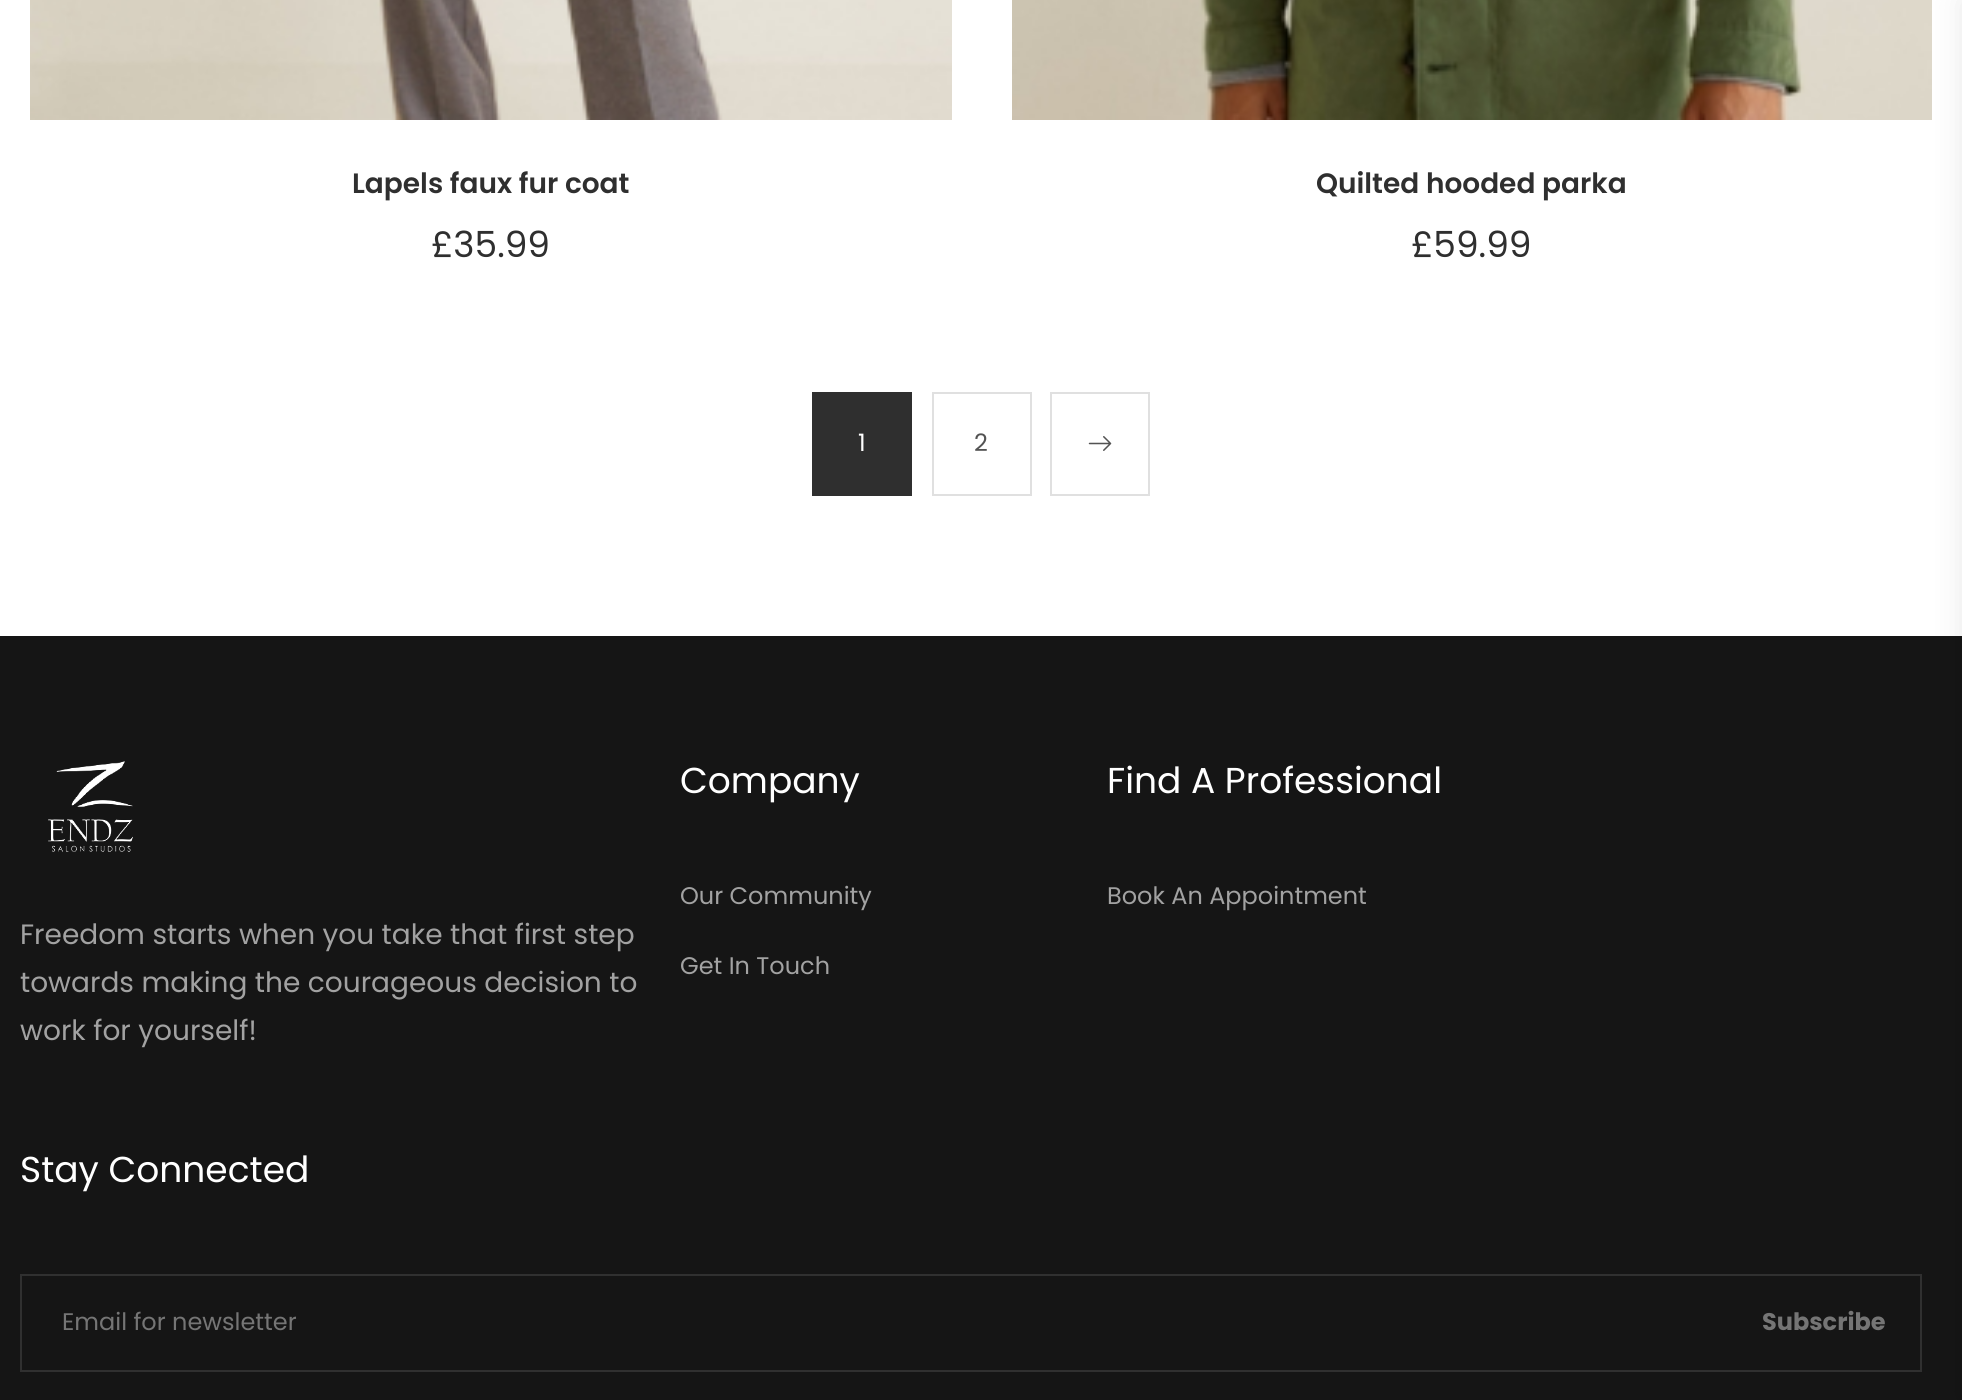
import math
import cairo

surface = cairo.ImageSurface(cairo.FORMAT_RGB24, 1962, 1400)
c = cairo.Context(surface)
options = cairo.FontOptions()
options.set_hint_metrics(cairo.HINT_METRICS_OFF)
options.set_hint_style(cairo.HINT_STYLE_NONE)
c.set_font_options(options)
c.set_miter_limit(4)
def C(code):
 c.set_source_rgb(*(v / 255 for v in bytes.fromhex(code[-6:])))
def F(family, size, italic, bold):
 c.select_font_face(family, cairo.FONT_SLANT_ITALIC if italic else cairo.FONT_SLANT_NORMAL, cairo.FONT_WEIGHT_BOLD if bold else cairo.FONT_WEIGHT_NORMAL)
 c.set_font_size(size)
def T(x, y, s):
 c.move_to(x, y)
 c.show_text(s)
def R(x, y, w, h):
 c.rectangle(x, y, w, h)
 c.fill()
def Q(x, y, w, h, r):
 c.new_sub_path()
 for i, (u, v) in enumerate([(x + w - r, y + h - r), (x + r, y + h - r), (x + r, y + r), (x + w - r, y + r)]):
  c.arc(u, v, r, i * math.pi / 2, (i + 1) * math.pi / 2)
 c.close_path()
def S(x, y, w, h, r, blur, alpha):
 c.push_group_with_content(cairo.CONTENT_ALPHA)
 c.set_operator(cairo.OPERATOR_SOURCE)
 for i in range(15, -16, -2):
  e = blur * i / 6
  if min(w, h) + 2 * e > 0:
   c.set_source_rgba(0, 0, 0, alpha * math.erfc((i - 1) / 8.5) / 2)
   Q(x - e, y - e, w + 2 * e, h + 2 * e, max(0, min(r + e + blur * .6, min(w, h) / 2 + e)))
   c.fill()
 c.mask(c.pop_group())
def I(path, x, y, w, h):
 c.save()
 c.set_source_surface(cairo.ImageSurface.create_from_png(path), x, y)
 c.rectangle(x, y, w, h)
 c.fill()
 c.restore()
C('ffffff')
c.paint()
I('1.png',30,0,922,120)
F('Poppins SemiBold',28,0,0)
C('2f2f2f')
T(352,193,'Lapels faux fur coat')
F('Poppins',36,0,0)
T(431,257,'£35.99')
I('2.png',1012,0,920,120)
F('Poppins SemiBold',28,0,0)
T(1316,193,'Quilted hooded parka')
F('Poppins',36,0,0)
T(1411,257,'£59.99')
R(812,392,100,104)
F('Poppins',24,0,0)
C('ffffff')
T(858,451,'1')
c.rectangle(933,393,98,102)
C('e0e0e0')
c.stroke()
C('535353')
T(974,451,'2')
c.rectangle(1051,393,98,102)
C('e0e0e0')
c.stroke()
I('3.png',1088,436,24,15)
C('151515')
R(0,636,1962,764)
I('4.png',48,761,85,91)
F('Poppins',28,0,0)
C('a2a2a2')
T(20,944,'Freedom starts when you take that first step')
T(20,992,'towards making the courageous decision to')
T(20,1040,'work for yourself!')
F('Poppins',36,0,0)
C('ffffff')
T(680,793,'Company')
F('Poppins',24,0,0)
C('a2a2a2')
T(680,904,'Our Community')
T(680,974,'Get In Touch')
F('Poppins',36,0,0)
C('ffffff')
T(1107,793,'Find A Professional')
F('Poppins',24,0,0)
C('a2a2a2')
T(1107,904,'Book An Appointment')
F('Poppins',36,0,0)
C('ffffff')
T(20,1182,'Stay Connected')
c.rectangle(21,1275,1900,96)
C('303030')
c.stroke()
F('Poppins',24,0,0)
C('757575')
T(62,1330,'Email for newsletter')
F('Poppins',24,0,1)
T(1762,1330,'Subscribe')
C('000000')
S(1962,0,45,1400,0,15,.09)
surface.write_to_png('o.png')
